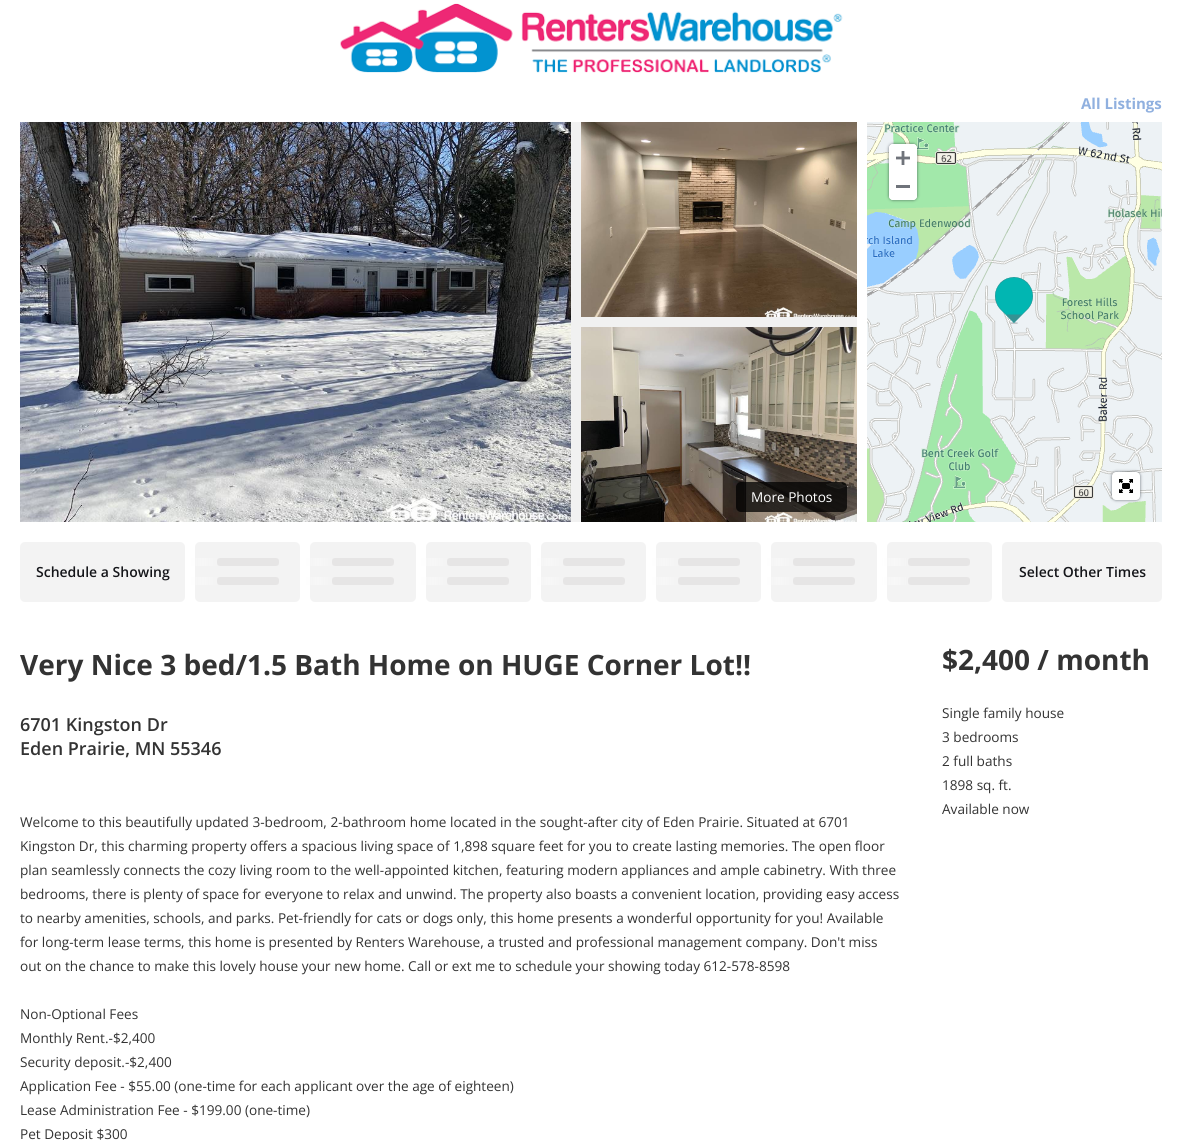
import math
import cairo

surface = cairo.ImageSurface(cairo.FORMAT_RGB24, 1182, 1140)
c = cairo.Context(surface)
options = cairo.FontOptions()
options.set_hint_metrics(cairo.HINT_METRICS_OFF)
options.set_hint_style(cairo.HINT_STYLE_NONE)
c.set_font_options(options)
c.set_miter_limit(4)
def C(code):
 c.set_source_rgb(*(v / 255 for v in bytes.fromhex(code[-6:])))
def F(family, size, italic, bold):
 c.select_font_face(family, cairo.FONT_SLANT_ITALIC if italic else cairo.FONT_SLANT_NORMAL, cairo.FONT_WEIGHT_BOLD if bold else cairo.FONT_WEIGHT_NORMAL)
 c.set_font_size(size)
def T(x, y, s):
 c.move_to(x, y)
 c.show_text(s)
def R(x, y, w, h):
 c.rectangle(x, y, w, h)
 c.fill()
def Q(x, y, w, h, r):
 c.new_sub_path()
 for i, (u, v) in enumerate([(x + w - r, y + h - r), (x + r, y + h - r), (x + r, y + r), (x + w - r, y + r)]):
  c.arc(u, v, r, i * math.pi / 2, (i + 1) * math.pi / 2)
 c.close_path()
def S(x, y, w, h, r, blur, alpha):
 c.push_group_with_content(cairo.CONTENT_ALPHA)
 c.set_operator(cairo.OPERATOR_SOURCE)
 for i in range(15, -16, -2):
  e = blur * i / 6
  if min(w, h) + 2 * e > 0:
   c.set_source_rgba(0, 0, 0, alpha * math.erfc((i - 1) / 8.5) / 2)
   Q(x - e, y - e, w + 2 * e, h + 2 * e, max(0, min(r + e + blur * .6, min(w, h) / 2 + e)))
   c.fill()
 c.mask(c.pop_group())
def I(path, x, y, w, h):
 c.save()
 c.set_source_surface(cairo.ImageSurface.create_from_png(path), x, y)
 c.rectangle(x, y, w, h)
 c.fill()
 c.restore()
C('ffffff')
c.paint()
I('1.png',340,3,503,70)
F('Open Sans',15,0,1)
C('90b0df')
T(1081,109,'All Listings')
C('f1f1f1')
R(571,122,286,400)
I('2.png',20,122,551,400)
I('3.png',581,122,276,195)
I('4.png',581,327,276,195)
c.set_source_rgba(0,0,0,0.75)
Q(736,482,111,30,5)
c.fill()
F('Open Sans',13.6,0,0)
C('ffffff')
T(751,502,'More Photos')
I('5.png',867,122,295,400)
C('0f1621')
S(889,144,28,56,4,1.5,.6)
C('ffffff')
Q(889,144,28,56,4)
c.fill()
Q(889,144,28,28,4)
c.fill()
I('6.png',896,151,14,14)
Q(889,172,28,28,4)
c.fill()
C('6f737a')
R(896,185,14,3)
C('0f1621')
S(1112,472,28,28,4,1.5,.6)
C('ffffff')
Q(1112,472,28,28,4)
c.fill()
I('7.png',1119,479,14,14)
C('f3f3f3')
Q(20,542,165,60,5)
c.fill()
F('Open Sans SemiBold',14,0,0)
C('141519')
T(36,577,'Schedule a Showing')
C('f3f3f3')
Q(195,542,105,60,5)
c.fill()
C('e6e5e5')
Q(217,558,62,8,3)
c.fill()
gradient = cairo.LinearGradient(217,562,189,562)
gradient.add_color_stop_rgba(0,0.984,0.984,0.984,.05)
gradient.add_color_stop_rgba(.25,0.984,0.984,0.984,.3)
gradient.add_color_stop_rgba(.5,0.984,0.984,0.984,.6)
gradient.add_color_stop_rgba(.75,0.984,0.984,0.984,.3)
gradient.add_color_stop_rgba(1,0.984,0.984,0.984,.05)
c.set_source(gradient)
R(189,558,28,8)
C('e6e5e5')
Q(217,577,62,8,3)
c.fill()
gradient = cairo.LinearGradient(217,581,189,581)
gradient.add_color_stop_rgba(0,0.984,0.984,0.984,.05)
gradient.add_color_stop_rgba(.25,0.984,0.984,0.984,.3)
gradient.add_color_stop_rgba(.5,0.984,0.984,0.984,.6)
gradient.add_color_stop_rgba(.75,0.984,0.984,0.984,.3)
gradient.add_color_stop_rgba(1,0.984,0.984,0.984,.05)
c.set_source(gradient)
R(189,577,28,8)
C('f3f3f3')
Q(310,542,106,60,5)
c.fill()
C('e6e5e5')
Q(332,558,62,8,3)
c.fill()
gradient = cairo.LinearGradient(332,562,304,562)
gradient.add_color_stop_rgba(0,0.984,0.984,0.984,.05)
gradient.add_color_stop_rgba(.25,0.984,0.984,0.984,.3)
gradient.add_color_stop_rgba(.5,0.984,0.984,0.984,.6)
gradient.add_color_stop_rgba(.75,0.984,0.984,0.984,.3)
gradient.add_color_stop_rgba(1,0.984,0.984,0.984,.05)
c.set_source(gradient)
R(304,558,28,8)
C('e6e5e5')
Q(332,577,62,8,3)
c.fill()
gradient = cairo.LinearGradient(332,581,304,581)
gradient.add_color_stop_rgba(0,0.984,0.984,0.984,.05)
gradient.add_color_stop_rgba(.25,0.984,0.984,0.984,.3)
gradient.add_color_stop_rgba(.5,0.984,0.984,0.984,.6)
gradient.add_color_stop_rgba(.75,0.984,0.984,0.984,.3)
gradient.add_color_stop_rgba(1,0.984,0.984,0.984,.05)
c.set_source(gradient)
R(304,577,28,8)
C('f3f3f3')
Q(426,542,105,60,5)
c.fill()
C('e6e5e5')
Q(447,558,62,8,3)
c.fill()
gradient = cairo.LinearGradient(447,562,419,562)
gradient.add_color_stop_rgba(0,0.984,0.984,0.984,.05)
gradient.add_color_stop_rgba(.25,0.984,0.984,0.984,.3)
gradient.add_color_stop_rgba(.5,0.984,0.984,0.984,.6)
gradient.add_color_stop_rgba(.75,0.984,0.984,0.984,.3)
gradient.add_color_stop_rgba(1,0.984,0.984,0.984,.05)
c.set_source(gradient)
R(419,558,28,8)
C('e6e5e5')
Q(447,577,62,8,3)
c.fill()
gradient = cairo.LinearGradient(447,581,419,581)
gradient.add_color_stop_rgba(0,0.984,0.984,0.984,.05)
gradient.add_color_stop_rgba(.25,0.984,0.984,0.984,.3)
gradient.add_color_stop_rgba(.5,0.984,0.984,0.984,.6)
gradient.add_color_stop_rgba(.75,0.984,0.984,0.984,.3)
gradient.add_color_stop_rgba(1,0.984,0.984,0.984,.05)
c.set_source(gradient)
R(419,577,28,8)
C('f3f3f3')
Q(541,542,105,60,5)
c.fill()
C('e6e5e5')
Q(563,558,62,8,3)
c.fill()
gradient = cairo.LinearGradient(563,562,535,562)
gradient.add_color_stop_rgba(0,0.984,0.984,0.984,.05)
gradient.add_color_stop_rgba(.25,0.984,0.984,0.984,.3)
gradient.add_color_stop_rgba(.5,0.984,0.984,0.984,.6)
gradient.add_color_stop_rgba(.75,0.984,0.984,0.984,.3)
gradient.add_color_stop_rgba(1,0.984,0.984,0.984,.05)
c.set_source(gradient)
R(535,558,28,8)
C('e6e5e5')
Q(563,577,62,8,3)
c.fill()
gradient = cairo.LinearGradient(563,581,535,581)
gradient.add_color_stop_rgba(0,0.984,0.984,0.984,.05)
gradient.add_color_stop_rgba(.25,0.984,0.984,0.984,.3)
gradient.add_color_stop_rgba(.5,0.984,0.984,0.984,.6)
gradient.add_color_stop_rgba(.75,0.984,0.984,0.984,.3)
gradient.add_color_stop_rgba(1,0.984,0.984,0.984,.05)
c.set_source(gradient)
R(535,577,28,8)
C('f3f3f3')
Q(656,542,105,60,5)
c.fill()
C('e6e5e5')
Q(678,558,62,8,3)
c.fill()
gradient = cairo.LinearGradient(678,562,650,562)
gradient.add_color_stop_rgba(0,0.984,0.984,0.984,.05)
gradient.add_color_stop_rgba(.25,0.984,0.984,0.984,.3)
gradient.add_color_stop_rgba(.5,0.984,0.984,0.984,.6)
gradient.add_color_stop_rgba(.75,0.984,0.984,0.984,.3)
gradient.add_color_stop_rgba(1,0.984,0.984,0.984,.05)
c.set_source(gradient)
R(650,558,28,8)
C('e6e5e5')
Q(678,577,62,8,3)
c.fill()
gradient = cairo.LinearGradient(678,581,650,581)
gradient.add_color_stop_rgba(0,0.984,0.984,0.984,.05)
gradient.add_color_stop_rgba(.25,0.984,0.984,0.984,.3)
gradient.add_color_stop_rgba(.5,0.984,0.984,0.984,.6)
gradient.add_color_stop_rgba(.75,0.984,0.984,0.984,.3)
gradient.add_color_stop_rgba(1,0.984,0.984,0.984,.05)
c.set_source(gradient)
R(650,577,28,8)
C('f3f3f3')
Q(771,542,106,60,5)
c.fill()
C('e6e5e5')
Q(793,558,62,8,3)
c.fill()
gradient = cairo.LinearGradient(793,562,765,562)
gradient.add_color_stop_rgba(0,0.984,0.984,0.984,.05)
gradient.add_color_stop_rgba(.25,0.984,0.984,0.984,.3)
gradient.add_color_stop_rgba(.5,0.984,0.984,0.984,.6)
gradient.add_color_stop_rgba(.75,0.984,0.984,0.984,.3)
gradient.add_color_stop_rgba(1,0.984,0.984,0.984,.05)
c.set_source(gradient)
R(765,558,28,8)
C('e6e5e5')
Q(793,577,62,8,3)
c.fill()
gradient = cairo.LinearGradient(793,581,765,581)
gradient.add_color_stop_rgba(0,0.984,0.984,0.984,.05)
gradient.add_color_stop_rgba(.25,0.984,0.984,0.984,.3)
gradient.add_color_stop_rgba(.5,0.984,0.984,0.984,.6)
gradient.add_color_stop_rgba(.75,0.984,0.984,0.984,.3)
gradient.add_color_stop_rgba(1,0.984,0.984,0.984,.05)
c.set_source(gradient)
R(765,577,28,8)
C('f3f3f3')
Q(887,542,105,60,5)
c.fill()
C('e6e5e5')
Q(908,558,62,8,3)
c.fill()
gradient = cairo.LinearGradient(908,562,881,562)
gradient.add_color_stop_rgba(0,0.984,0.984,0.984,.05)
gradient.add_color_stop_rgba(.25,0.984,0.984,0.984,.3)
gradient.add_color_stop_rgba(.5,0.984,0.984,0.984,.6)
gradient.add_color_stop_rgba(.75,0.984,0.984,0.984,.3)
gradient.add_color_stop_rgba(1,0.984,0.984,0.984,.05)
c.set_source(gradient)
R(881,558,27,8)
C('e6e5e5')
Q(908,577,62,8,3)
c.fill()
gradient = cairo.LinearGradient(908,581,881,581)
gradient.add_color_stop_rgba(0,0.984,0.984,0.984,.05)
gradient.add_color_stop_rgba(.25,0.984,0.984,0.984,.3)
gradient.add_color_stop_rgba(.5,0.984,0.984,0.984,.6)
gradient.add_color_stop_rgba(.75,0.984,0.984,0.984,.3)
gradient.add_color_stop_rgba(1,0.984,0.984,0.984,.05)
c.set_source(gradient)
R(881,577,27,8)
C('f3f3f3')
Q(1002,542,160,60,5)
c.fill()
C('141519')
T(1019,577,'Select Other Times')
F('Open Sans',28,0,1)
C('333333')
T(20,675,'Very Nice 3 bed/1.5 Bath Home on HUGE Corner Lot!!')
F('Open Sans SemiBold',18,0,0)
T(20,731,'6701 Kingston Dr')
T(20,755,'Eden Prairie, MN 55346')
F('Open Sans',13.6,0,0)
T(20,827,'Welcome to this beautifully updated 3-bedroom, 2-bathroom home located in the sought-after city of Eden Prairie. Situated at 6701')
T(20,851,'Kingston Dr, this charming property offers a spacious living space of 1,898 square feet for you to create lasting memories. The open floor')
T(20,875,'plan seamlessly connects the cozy living room to the well-appointed kitchen, featuring modern appliances and ample cabinetry. With three')
T(20,899,'bedrooms, there is plenty of space for everyone to relax and unwind. The property also boasts a convenient location, providing easy access')
T(20,923,'to nearby amenities, schools, and parks. Pet-friendly for cats or dogs only, this home presents a wonderful opportunity for you! Available')
T(20,947,'for long-term lease terms, this home is presented by Renters Warehouse, a trusted and professional management company. Don\'t miss')
T(20,971,'out on the chance to make this lovely house your new home. Call or ext me to schedule your showing today 612-578-8598')
T(20,1019,'Non-Optional Fees')
T(20,1043,'Monthly Rent.-$2,400')
T(20,1067,'Security deposit.-$2,400')
T(20,1091,'Application Fee - $55.00 (one-time for each applicant over the age of eighteen)')
T(20,1115,'Lease Administration Fee - $199.00 (one-time)')
T(20,1139,'Pet Deposit $300')
F('Open Sans',28,0,1)
T(942,670,'$2,400 / month')
F('Open Sans',13.6,0,0)
T(942,718,'Single family house')
T(942,742,'3 bedrooms')
T(942,766,'2 full baths')
T(942,790,'1898 sq. ft.')
T(942,814,'Available now')
surface.write_to_png('o.png')
